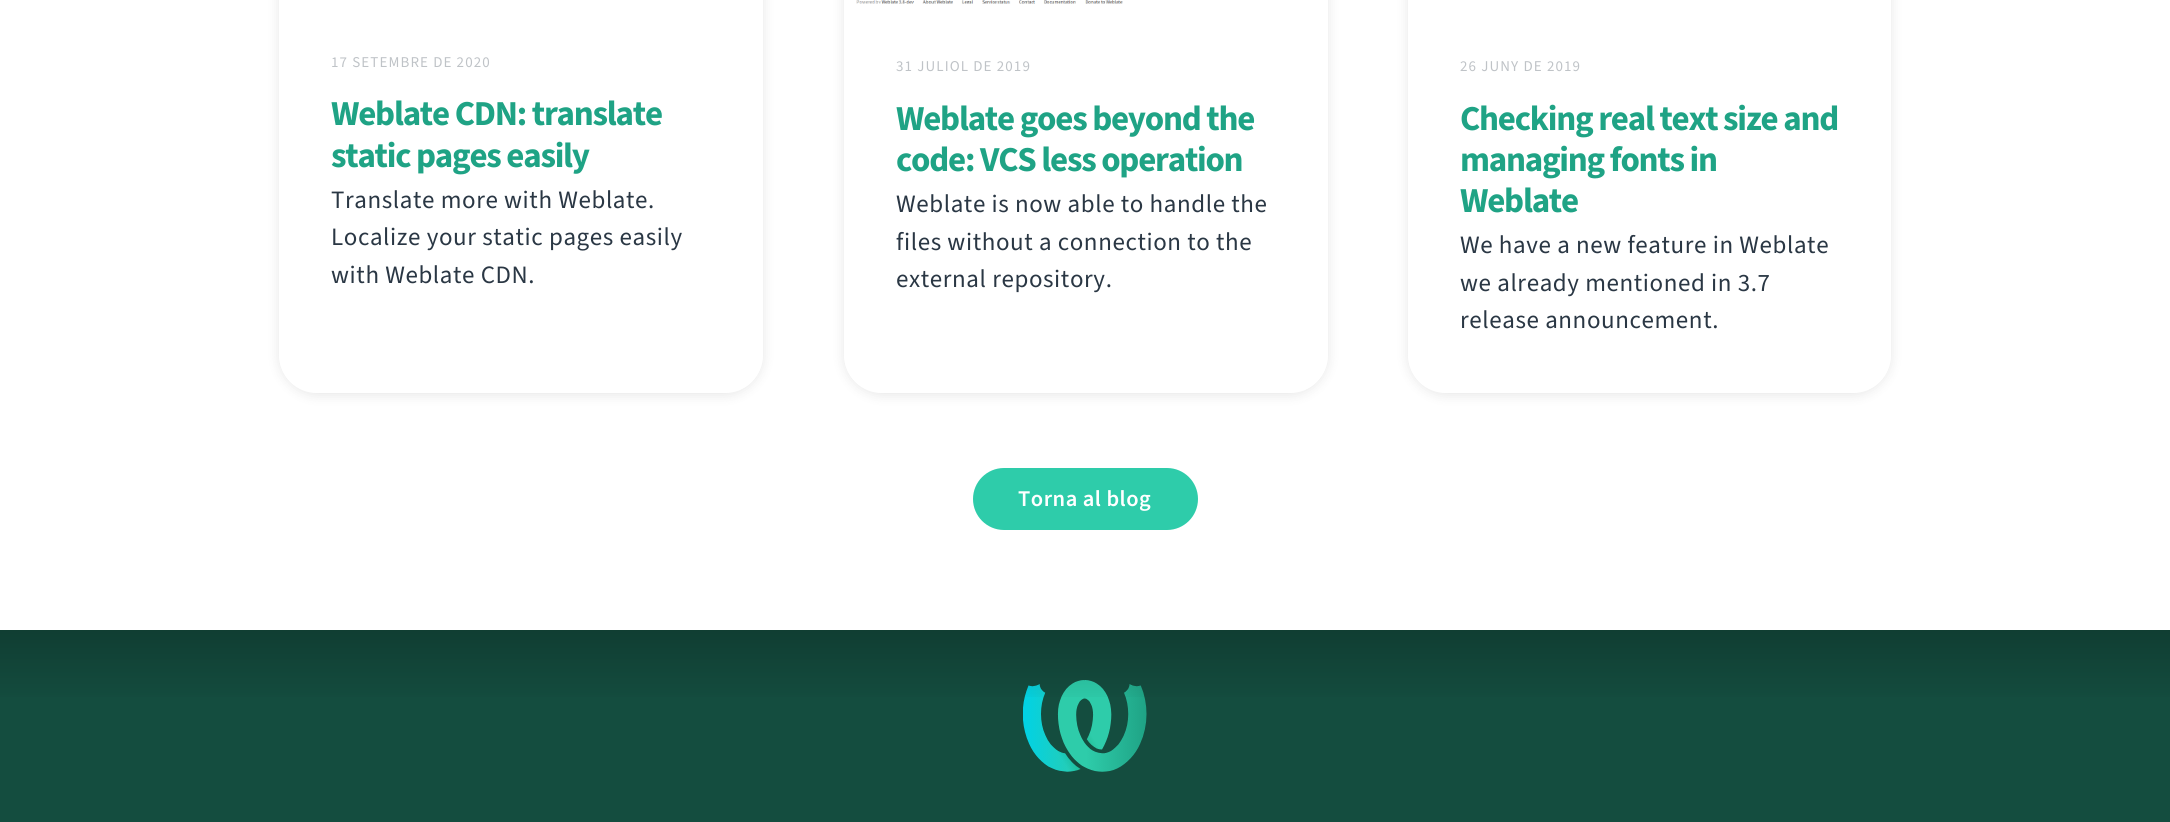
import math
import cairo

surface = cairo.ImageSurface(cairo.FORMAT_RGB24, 2170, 822)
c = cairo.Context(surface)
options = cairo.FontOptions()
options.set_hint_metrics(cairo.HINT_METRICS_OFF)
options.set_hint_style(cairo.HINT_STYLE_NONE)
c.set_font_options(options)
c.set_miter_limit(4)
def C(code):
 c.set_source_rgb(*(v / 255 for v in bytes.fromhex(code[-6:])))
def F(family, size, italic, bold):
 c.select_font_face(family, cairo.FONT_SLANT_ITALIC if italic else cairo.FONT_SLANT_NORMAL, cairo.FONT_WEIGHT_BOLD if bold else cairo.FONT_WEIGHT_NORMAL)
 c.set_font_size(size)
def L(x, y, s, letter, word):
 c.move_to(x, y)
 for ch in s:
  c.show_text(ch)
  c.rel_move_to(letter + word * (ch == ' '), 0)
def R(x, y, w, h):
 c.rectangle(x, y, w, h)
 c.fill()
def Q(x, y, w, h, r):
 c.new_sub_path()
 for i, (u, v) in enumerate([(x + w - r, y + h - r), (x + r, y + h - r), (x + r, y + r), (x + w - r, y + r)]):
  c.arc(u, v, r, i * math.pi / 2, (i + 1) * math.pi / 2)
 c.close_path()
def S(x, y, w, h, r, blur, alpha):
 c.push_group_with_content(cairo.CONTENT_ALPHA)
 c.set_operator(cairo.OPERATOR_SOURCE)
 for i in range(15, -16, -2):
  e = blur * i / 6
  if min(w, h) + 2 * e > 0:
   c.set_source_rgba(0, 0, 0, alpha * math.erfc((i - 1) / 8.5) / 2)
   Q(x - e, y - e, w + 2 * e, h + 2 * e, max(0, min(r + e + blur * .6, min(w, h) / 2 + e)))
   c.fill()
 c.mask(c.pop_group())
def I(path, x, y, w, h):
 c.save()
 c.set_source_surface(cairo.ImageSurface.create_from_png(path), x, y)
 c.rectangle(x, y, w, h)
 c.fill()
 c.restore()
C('ffffff')
c.paint()
c.save()
c.set_fill_rule(cairo.FILL_RULE_EVEN_ODD)
c.new_path()
c.move_to(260,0)
c.line_to(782,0)
c.line_to(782,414)
c.line_to(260,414)
c.close_path()
c.move_to(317,-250)
c.line_to(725,-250)
c.curve_to(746,-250,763,-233,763,-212)
c.line_to(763,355)
c.curve_to(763,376,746,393,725,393)
c.line_to(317,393)
c.curve_to(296,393,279,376,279,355)
c.line_to(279,-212)
c.curve_to(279,-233,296,-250,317,-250)
c.close_path()
c.clip()
C('000000')
S(279,-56,484,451,38,6,.1)
c.restore()
F('Source Sans 3',15,0,0)
C('bfc3c7')
L(331,67,'17 SETEMBRE DE 2020',1.1,0)
F('Source Sans 3',35,0,1)
C('1fa385')
L(331,125,'Weblate CDN: translate',-1.25,0)
L(331,167,'static pages easily',-1.25,0)
F('Source Sans 3',25,0,0)
C('2a3744')
L(331,208,'Translate more with Weblate.',.6,0)
L(331,245,'Localize your static pages easily',.6,0)
L(331,283,'with Weblate CDN.',.6,0)
c.save()
c.set_fill_rule(cairo.FILL_RULE_EVEN_ODD)
c.new_path()
c.move_to(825,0)
c.line_to(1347,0)
c.line_to(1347,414)
c.line_to(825,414)
c.close_path()
c.move_to(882,-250)
c.line_to(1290,-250)
c.curve_to(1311,-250,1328,-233,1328,-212)
c.line_to(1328,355)
c.curve_to(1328,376,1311,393,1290,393)
c.line_to(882,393)
c.curve_to(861,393,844,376,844,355)
c.line_to(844,-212)
c.curve_to(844,-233,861,-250,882,-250)
c.close_path()
c.clip()
C('000000')
S(844,-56,484,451,38,6,.1)
c.restore()
I('1.png',856,0,267,4)
F('Source Sans 3',15,0,0)
C('bfc3c7')
L(896,71,'31 JULIOL DE 2019',1.1,0)
F('Source Sans 3',35,0,1)
C('1fa385')
L(896,130,'Weblate goes beyond the',-1.25,0)
L(896,171,'code: VCS less operation',-1.25,0)
F('Source Sans 3',25,0,0)
C('2a3744')
L(896,212,'Weblate is now able to handle the',.6,0)
L(896,250,'files without a connection to the',.6,0)
L(896,287,'external repository.',.6,0)
c.save()
c.set_fill_rule(cairo.FILL_RULE_EVEN_ODD)
c.new_path()
c.move_to(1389,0)
c.line_to(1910,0)
c.line_to(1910,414)
c.line_to(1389,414)
c.close_path()
c.move_to(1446,-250)
c.line_to(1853,-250)
c.curve_to(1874,-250,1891,-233,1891,-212)
c.line_to(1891,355)
c.curve_to(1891,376,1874,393,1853,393)
c.line_to(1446,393)
c.curve_to(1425,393,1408,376,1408,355)
c.line_to(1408,-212)
c.curve_to(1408,-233,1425,-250,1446,-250)
c.close_path()
c.clip()
C('000000')
S(1408,-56,483,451,38,6,.1)
c.restore()
F('Source Sans 3',15,0,0)
C('bfc3c7')
L(1460,71,'26 JUNY DE 2019',1.1,0)
F('Source Sans 3',35,0,1)
C('1fa385')
L(1460,130,'Checking real text size and',-1.25,0)
L(1460,171,'managing fonts in',-1.25,0)
L(1460,212,'Weblate',-1.25,0)
F('Source Sans 3',25,0,0)
C('2a3744')
L(1460,253,'We have a new feature in Weblate',.6,0)
L(1460,291,'we already mentioned in 3.7',.6,0)
L(1460,328,'release announcement.',.6,0)
C('2eccaa')
Q(973,468,225,62,31)
c.fill()
F('Source Sans 3 SemiBold',22.5,0,0)
C('ffffff')
L(1018,506,'Torna al blog',.5,0)
C('144d3f')
R(0,630,2170,192)
I('2.png',1023,680,124,92)
gradient = cairo.LinearGradient(1085,630,1085,705)
gradient.add_color_stop_rgba(0,0,0,0,.2)
gradient.add_color_stop_rgba(1,0,0,0,0)
c.set_source(gradient)
R(0,630,2170,67)
surface.write_to_png('o.png')
